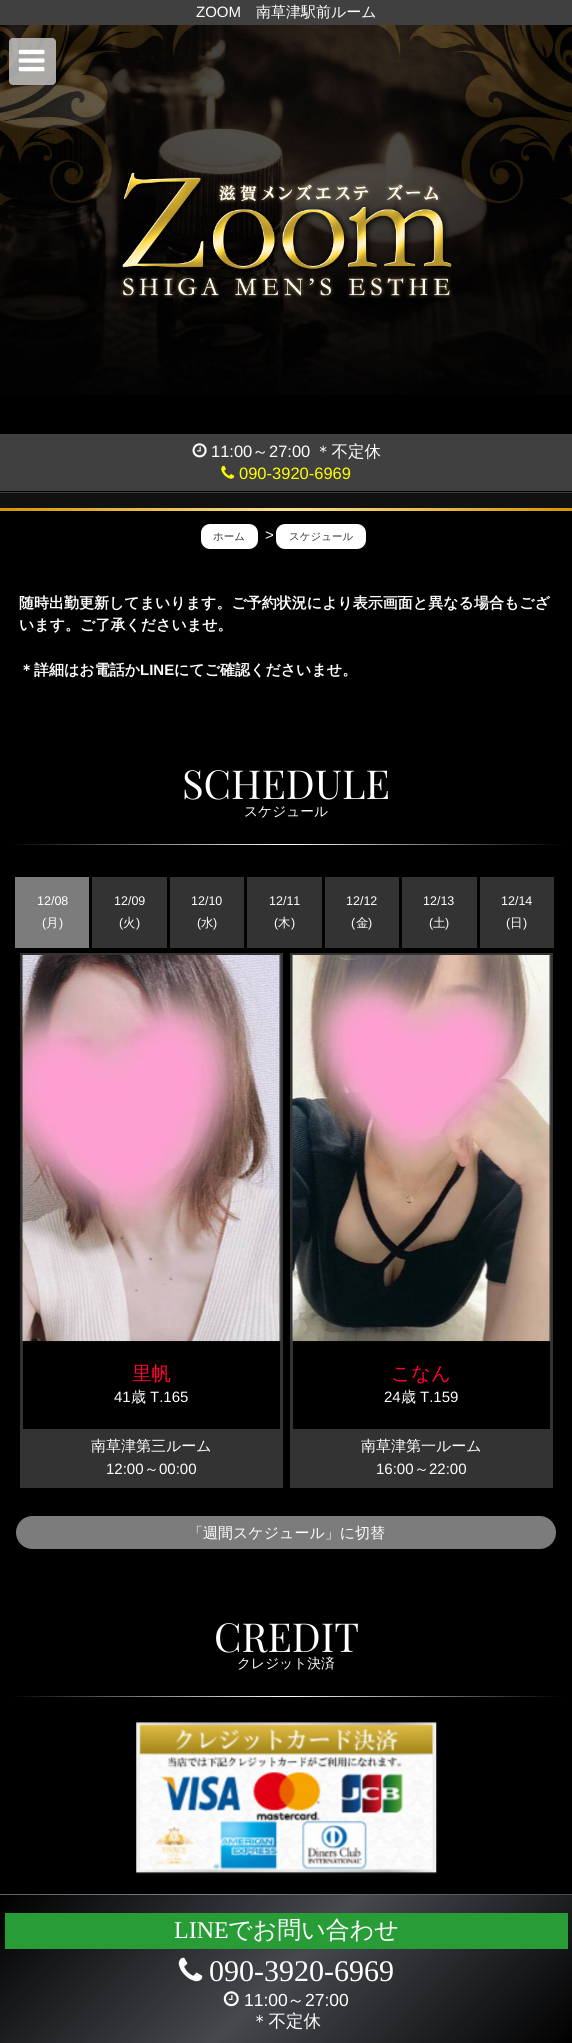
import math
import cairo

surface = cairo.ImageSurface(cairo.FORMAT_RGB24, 572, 2043)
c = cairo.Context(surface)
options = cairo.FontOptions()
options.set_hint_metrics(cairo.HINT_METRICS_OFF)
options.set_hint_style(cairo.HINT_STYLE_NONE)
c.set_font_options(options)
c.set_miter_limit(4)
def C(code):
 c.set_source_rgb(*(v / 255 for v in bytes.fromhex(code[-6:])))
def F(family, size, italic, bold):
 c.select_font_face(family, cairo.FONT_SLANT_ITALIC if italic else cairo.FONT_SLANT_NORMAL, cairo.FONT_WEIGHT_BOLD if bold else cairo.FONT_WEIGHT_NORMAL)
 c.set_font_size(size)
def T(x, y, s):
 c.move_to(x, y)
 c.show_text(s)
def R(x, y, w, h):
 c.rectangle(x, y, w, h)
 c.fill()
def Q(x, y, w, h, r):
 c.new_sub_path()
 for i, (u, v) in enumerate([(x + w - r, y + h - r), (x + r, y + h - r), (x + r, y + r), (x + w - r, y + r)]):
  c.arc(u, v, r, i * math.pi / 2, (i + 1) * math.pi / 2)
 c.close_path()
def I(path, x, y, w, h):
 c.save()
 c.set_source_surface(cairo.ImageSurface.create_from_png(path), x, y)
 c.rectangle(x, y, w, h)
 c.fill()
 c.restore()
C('000000')
c.paint()
C('404040')
R(0,0,572,25)
F('Liberation Sans',15,0,0)
C('ffffff')
T(196,17,'ZOOM')
F('WenQuanYi Zen Hei Medium',15,0,0)
T(256,17,'南草津駅前ルーム')
I('5.png',0,25,572,370)
c.set_source_rgba(0.8,0.8,0.8,0.8)
Q(9,38,47,47,4)
c.fill()
I('1.png',18,49,27,23)
I('2.png',120,172,333,126)
C('404040')
R(0,434,572,59)
C('000000')
R(0,491,572,1)
I('3.png',192,443,15,15)
F('Liberation Sans',16.5,0,0)
C('ffffff')
T(211,457,'11:00')
F('WenQuanYi Zen Hei Medium',16.5,0,0)
T(252,457,'～')
F('Liberation Sans',16.5,0,0)
T(269,457,'27:00')
F('WenQuanYi Zen Hei Medium',16.5,0,0)
T(315,457,'＊不定休')
I('4.png',221,465,14,14)
F('Liberation Sans',16.5,0,0)
C('ffff00')
T(239,479,'090-3920-6969')
gradient = cairo.LinearGradient(142,365,430,653)
gradient.add_color_stop_rgba(0,0.827,0.596,0.008,1)
gradient.add_color_stop_rgba(.5,0.988,0.878,0.553,1)
gradient.add_color_stop_rgba(1,0.827,0.596,0.008,1)
c.set_source(gradient)
R(0,508,572,3)
C('111111')
R(0,493,572,15)
C('ffffff')
Q(201,524,57,25,9)
c.fill()
F('WenQuanYi Zen Hei Medium',10.5,0,0)
C('333333')
T(213,540,'ホーム')
F('Liberation Sans',15,0,0)
C('ffffff')
T(265,540,'>')
Q(276,524,90,25,9)
c.fill()
F('WenQuanYi Zen Hei Medium',10.5,0,0)
C('333333')
T(289,540,'スケジュール')
F('WenQuanYi Zen Hei',15,0,1)
C('ffffff')
T(19,608,'随時出勤更新してまいります。ご予約状況により表示画面と異なる場合もござ')
T(19,630,'います。ご了承くださいませ。')
T(19,675,'＊詳細はお電話か')
F('Liberation Sans',15,0,1)
T(140,675,'LINE')
F('WenQuanYi Zen Hei',15,0,1)
T(174,675,'にてご確認くださいませ。')
F('Playfair Display',40,0,0)
T(182,799,'SCHEDULE')
F('WenQuanYi Zen Hei Medium',13.75,0,0)
T(244,816,'スケジュール')
gradient = cairo.LinearGradient(10,844,563,844)
gradient.add_color_stop_rgba(0,0,0,0,1)
gradient.add_color_stop_rgba(.5,1,1,1,1)
gradient.add_color_stop_rgba(1,0,0,0,1)
c.set_source(gradient)
R(10,844,553,1)
C('7c7c7c')
R(15,877,74,71)
F('Liberation Sans',12.5,0,0)
C('ffffff')
T(37,905,'12/08')
T(42,927,'(')
F('WenQuanYi Zen Hei Medium',12.5,0,0)
T(46,927,'月')
F('Liberation Sans',12.5,0,0)
T(59,927,')')
C('333333')
R(92,877,75,71)
C('ffffff')
T(114,905,'12/09')
T(119,927,'(')
F('WenQuanYi Zen Hei Medium',12.5,0,0)
T(123,927,'火')
F('Liberation Sans',12.5,0,0)
T(136,927,')')
C('333333')
R(170,877,74,71)
C('ffffff')
T(191,905,'12/10')
T(197,927,'(')
F('WenQuanYi Zen Hei Medium',12.5,0,0)
T(201,927,'水')
F('Liberation Sans',12.5,0,0)
T(213,927,')')
C('333333')
R(247,877,75,71)
C('ffffff')
T(269,905,'12/11')
T(274,927,'(')
F('WenQuanYi Zen Hei Medium',12.5,0,0)
T(278,927,'木')
F('Liberation Sans',12.5,0,0)
T(291,927,')')
C('333333')
R(325,877,74,71)
C('ffffff')
T(346,905,'12/12')
T(351,927,'(')
F('WenQuanYi Zen Hei Medium',12.5,0,0)
T(356,927,'金')
F('Liberation Sans',12.5,0,0)
T(368,927,')')
C('333333')
R(402,877,75,71)
C('ffffff')
T(423,905,'12/13')
T(429,927,'(')
F('WenQuanYi Zen Hei Medium',12.5,0,0)
T(433,927,'土')
F('Liberation Sans',12.5,0,0)
T(445,927,')')
C('333333')
R(480,877,74,71)
C('ffffff')
T(501,905,'12/14')
T(506,927,'(')
F('WenQuanYi Zen Hei Medium',12.5,0,0)
T(510,927,'日')
F('Liberation Sans',12.5,0,0)
T(523,927,')')
c.rectangle(21.5,954.5,260,532)
C('333333')
c.set_line_width(3)
c.stroke()
I('6.png',22,955,259,387)
F('WenQuanYi Zen Hei Medium',19.5,0,0)
C('ff0033')
T(132,1380,'里帆')
F('Liberation Sans',15,0,0)
C('ffffff')
T(114,1402,'41')
F('WenQuanYi Zen Hei Medium',15,0,0)
T(131,1402,'歳')
F('Liberation Sans',15,0,0)
T(150,1402,'T.165')
C('333333')
R(23,1429,257,56)
F('WenQuanYi Zen Hei Medium',15,0,0)
C('ffffff')
T(91,1451,'南草津第三ルーム')
F('Liberation Sans',15,0,0)
T(106,1474,'12:00')
F('WenQuanYi Zen Hei Medium',15,0,0)
T(144,1474,'～')
F('Liberation Sans',15,0,0)
T(159,1474,'00:00')
c.rectangle(291.5,954.5,260,532)
C('333333')
c.stroke()
I('7.png',292,955,259,387)
F('WenQuanYi Zen Hei Medium',19.5,0,0)
C('ff0033')
T(391,1380,'こなん')
F('Liberation Sans',15,0,0)
C('ffffff')
T(384,1402,'24')
F('WenQuanYi Zen Hei Medium',15,0,0)
T(401,1402,'歳')
F('Liberation Sans',15,0,0)
T(420,1402,'T.159')
C('333333')
R(293,1429,257,56)
F('WenQuanYi Zen Hei Medium',15,0,0)
C('ffffff')
T(361,1451,'南草津第一ルーム')
F('Liberation Sans',15,0,0)
T(376,1474,'16:00')
F('WenQuanYi Zen Hei Medium',15,0,0)
T(414,1474,'～')
F('Liberation Sans',15,0,0)
T(429,1474,'22:00')
C('7c7c7c')
Q(16,1516,540,33,16.5)
c.fill()
F('WenQuanYi Zen Hei Medium',15,0,0)
C('ffffff')
T(188,1538,'「週間スケジュール」に切替')
F('Playfair Display',40,0,0)
T(214,1652,'CREDIT')
F('WenQuanYi Zen Hei Medium',13.75,0,0)
T(237,1668,'クレジット決済')
gradient = cairo.LinearGradient(10,1697,563,1697)
gradient.add_color_stop_rgba(0,0,0,0,1)
gradient.add_color_stop_rgba(.5,1,1,1,1)
gradient.add_color_stop_rgba(1,0,0,0,1)
c.set_source(gradient)
R(10,1696,553,1)
I('8.png',136,1722,301,152)
gradient = cairo.LinearGradient(106,1640,467,2001)
gradient.add_color_stop_rgba(0,0.302,0.302,0.302,1)
gradient.add_color_stop_rgba(.5,0.49,0.498,0.51,1)
gradient.add_color_stop_rgba(1,0.302,0.302,0.302,1)
c.set_source(gradient)
R(0,1894,572,1)
gradient = cairo.LinearGradient(106,1789,467,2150)
gradient.add_color_stop_rgba(0,0,0,0,1)
gradient.add_color_stop_rgba(.5,0.271,0.282,0.302,1)
gradient.add_color_stop_rgba(1,0,0,0,1)
c.set_source(gradient)
R(0,1895,572,148)
C('289d37')
R(5,1913,563,36)
F('Liberation Serif',24,0,0)
C('ffffff')
T(174,1938,'LINE')
F('WenQuanYi Zen Hei Medium',24,0,0)
T(228,1938,'でお問い合わせ')
I('9.png',178,1957,25,25)
F('Liberation Serif',30,0,0)
T(209,1981,'090-3920-6969')
I('10.png',223,1991,16,16)
F('Liberation Sans',17.5,0,0)
T(244,2006,'11:00')
F('WenQuanYi Zen Hei Medium',17.5,0,0)
T(287,2006,'～')
F('Liberation Sans',17.5,0,0)
T(305,2006,'27:00')
F('WenQuanYi Zen Hei Medium',17.5,0,0)
T(251,2027,'＊不定休')
surface.write_to_png('o.png')
